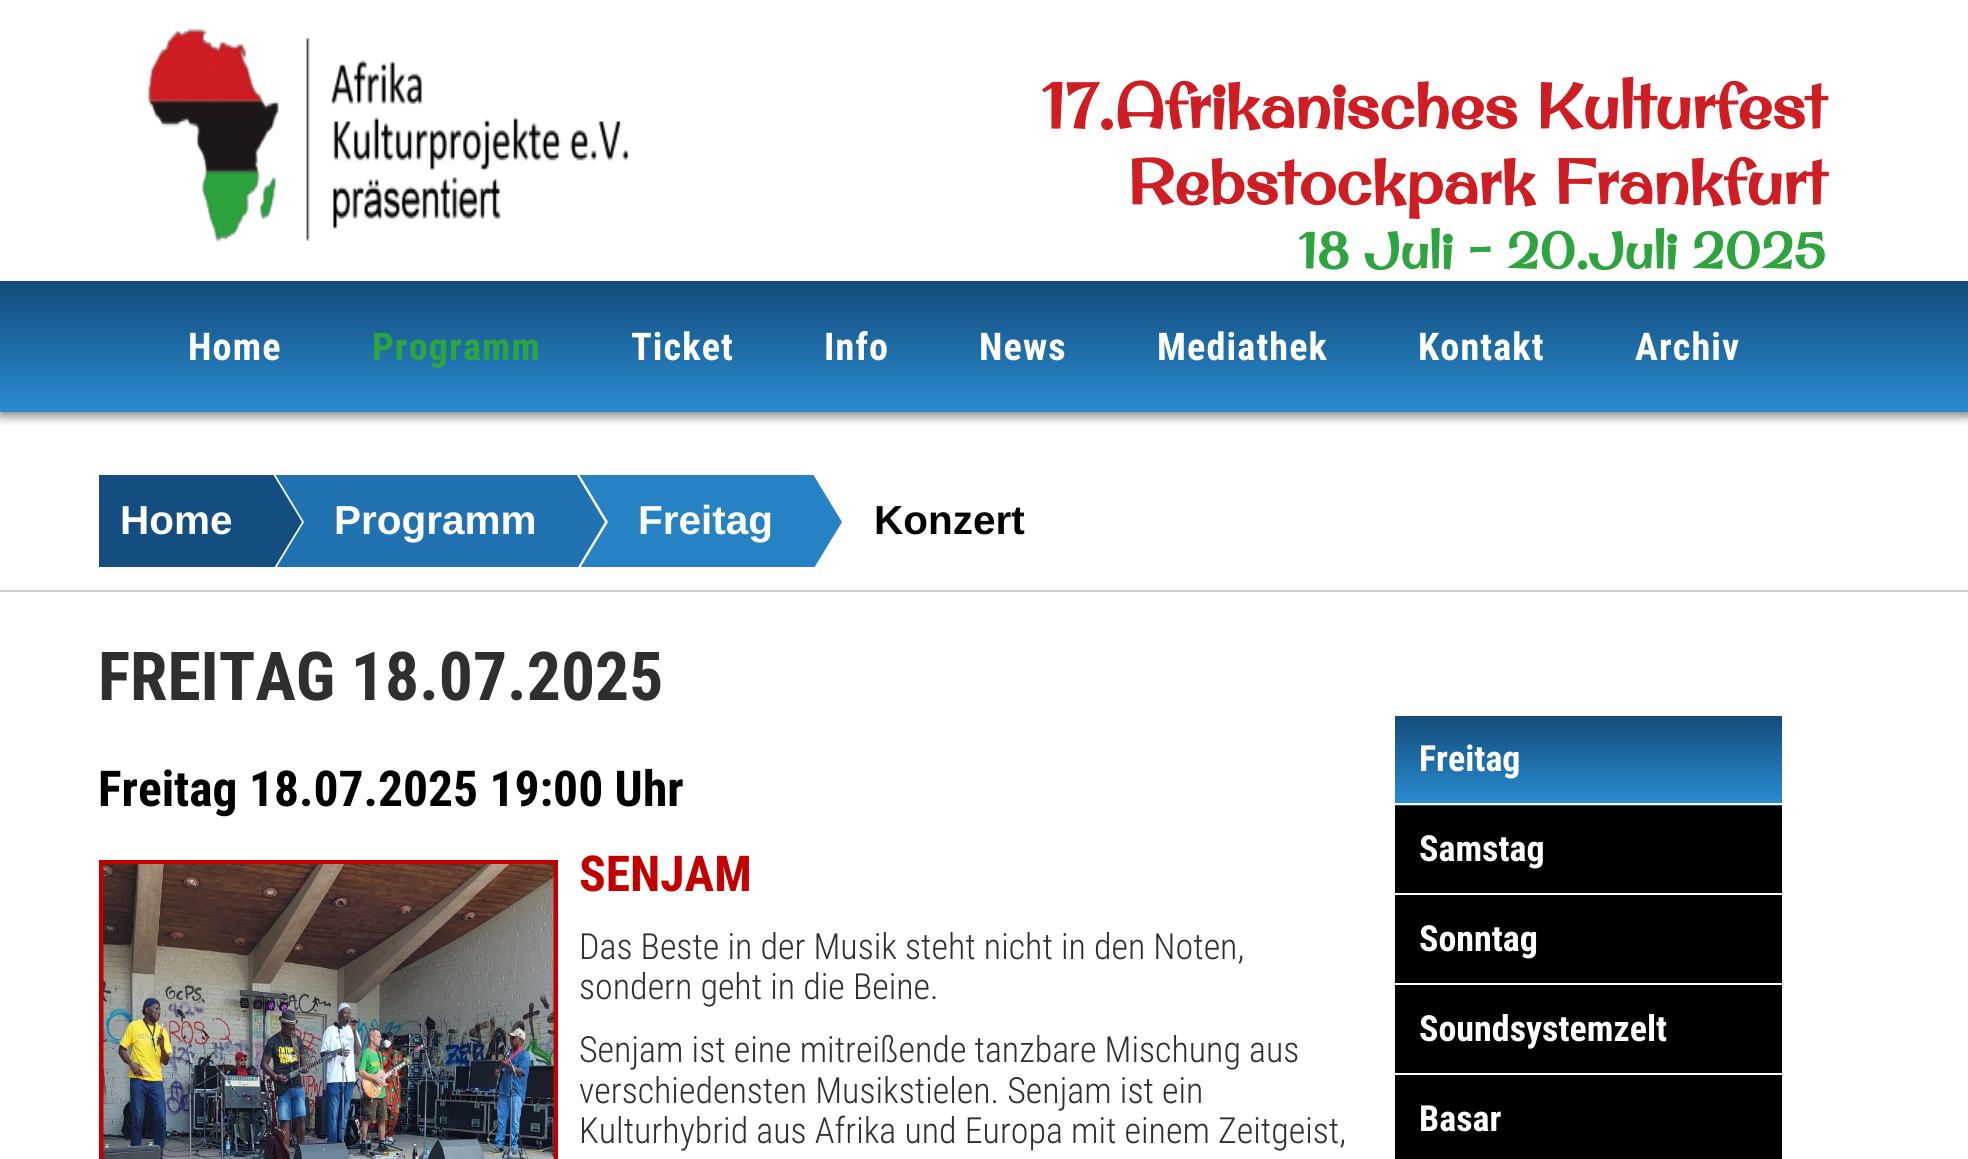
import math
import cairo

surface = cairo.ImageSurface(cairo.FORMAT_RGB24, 1968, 1159)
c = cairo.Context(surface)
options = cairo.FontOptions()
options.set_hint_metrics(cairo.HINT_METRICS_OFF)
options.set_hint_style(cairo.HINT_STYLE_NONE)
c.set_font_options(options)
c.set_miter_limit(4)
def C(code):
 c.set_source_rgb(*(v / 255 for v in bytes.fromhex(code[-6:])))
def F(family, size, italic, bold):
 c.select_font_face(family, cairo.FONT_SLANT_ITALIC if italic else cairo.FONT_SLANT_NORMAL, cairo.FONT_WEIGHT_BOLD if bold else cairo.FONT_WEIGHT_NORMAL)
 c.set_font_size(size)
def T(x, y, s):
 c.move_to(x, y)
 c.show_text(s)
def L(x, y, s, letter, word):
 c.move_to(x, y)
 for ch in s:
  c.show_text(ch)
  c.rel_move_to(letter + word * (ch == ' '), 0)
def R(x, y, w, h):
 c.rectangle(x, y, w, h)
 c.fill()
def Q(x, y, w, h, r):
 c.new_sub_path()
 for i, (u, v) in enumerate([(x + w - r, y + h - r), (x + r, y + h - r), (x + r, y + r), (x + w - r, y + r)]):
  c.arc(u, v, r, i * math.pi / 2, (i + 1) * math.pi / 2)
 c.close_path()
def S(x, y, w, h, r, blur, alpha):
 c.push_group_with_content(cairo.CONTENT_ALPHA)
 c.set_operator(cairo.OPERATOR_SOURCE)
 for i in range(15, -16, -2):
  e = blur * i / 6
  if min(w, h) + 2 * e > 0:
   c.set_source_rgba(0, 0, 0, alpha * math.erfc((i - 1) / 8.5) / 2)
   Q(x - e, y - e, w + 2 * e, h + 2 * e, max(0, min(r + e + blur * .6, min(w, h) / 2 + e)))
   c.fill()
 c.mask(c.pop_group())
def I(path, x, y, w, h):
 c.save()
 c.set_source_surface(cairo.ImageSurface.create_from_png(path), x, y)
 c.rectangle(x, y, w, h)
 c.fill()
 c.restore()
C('ffffff')
c.paint()
c.save()
c.rectangle(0,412,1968,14)
c.clip()
C('000000')
S(0,5,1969,411,0,5.5,.51)
c.restore()
I('1.png',148,28,481,214)
F('Original Surfer',63,0,1)
C('ce1d23')
T(1041,128,'17.Afrikanisches Kulturfest')
T(1127,204,'Rebstockpark Frankfurt')
F('Original Surfer',49.5,0,1)
C('2ea43f')
T(1298,268,'18 Juli - 20.Juli 2025')
gradient = cairo.LinearGradient(984,281,984,412)
gradient.add_color_stop_rgba(0,0.075,0.294,0.486,1)
gradient.add_color_stop_rgba(1,0.161,0.549,0.812,1)
c.set_source(gradient)
R(0,281,1968,131)
F('Roboto Condensed',38.25,0,1)
C('ffffff')
L(188,360,'Home',1.1,0)
C('2ea43f')
L(372,360,'Programm',1.1,0)
C('ffffff')
L(631,360,'Ticket',1.1,0)
L(824,360,'Info',1.1,0)
L(979,360,'News',1.1,0)
L(1157,360,'Mediathek',1.1,0)
L(1418,360,'Kontakt',1.1,0)
L(1635,360,'Archiv',1.1,0)
C('cccccc')
R(0,590,1968,2)
C('144d7f')
R(99,475,135,92)
C('2072b1')
R(275,475,263,92)
c.save()
c.rectangle(99,475,1440,92)
c.clip()
C('ffffff')
c.new_path()
c.move_to(236,634)
c.line_to(236,410)
c.line_to(304,522)
c.close_path()
c.fill()
C('144d7f')
c.new_path()
c.move_to(234,634)
c.line_to(234,410)
c.line_to(302,522)
c.close_path()
c.fill()
c.restore()
F('Liberation Sans',40.5,0,1)
C('ffffff')
T(120,534,'Home')
C('2782c4')
R(579,475,195,92)
c.save()
c.rectangle(99,475,1440,92)
c.clip()
C('ffffff')
c.new_path()
c.move_to(540,634)
c.line_to(540,410)
c.line_to(608,522)
c.close_path()
c.fill()
C('2072b1')
c.new_path()
c.move_to(538,634)
c.line_to(538,410)
c.line_to(605,522)
c.close_path()
c.fill()
c.restore()
C('ffffff')
T(334,534,'Programm')
T(638,534,'Freitag')
c.save()
c.rectangle(99,475,1440,92)
c.clip()
C('2782c4')
c.new_path()
c.move_to(774,634)
c.line_to(774,410)
c.line_to(842,522)
c.close_path()
c.fill()
c.restore()
C('000000')
T(874,534,'Konzert')
F('Roboto Condensed',67.5,0,1)
C('2f2f2f')
T(98,700,'FREITAG 18.07.2025')
F('Roboto Condensed',49.5,0,1)
C('000000')
T(98,806,'Freitag 18.07.2025 19:00 Uhr')
c.rectangle(101.5,862.5,454,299)
C('c30000')
c.set_line_width(5)
c.stroke()
I('2.png',103,864,451,295)
T(579,891,'SENJAM')
F('Roboto Condensed Light',36,0,0)
C('2f2f2f')
T(579,959,'Das Beste in der Musik steht nicht in den Noten,')
T(579,999,'sondern geht in die Beine.')
T(579,1062,'Senjam ist eine mitreißende tanzbare Mischung aus')
T(579,1103,'verschiedensten Musikstielen. Senjam ist ein')
T(579,1143,'Kulturhybrid aus Afrika und Europa mit einem Zeitgeist,')
gradient = cairo.LinearGradient(1589,716,1589,803)
gradient.add_color_stop_rgba(0,0.075,0.294,0.486,1)
gradient.add_color_stop_rgba(1,0.161,0.549,0.812,1)
c.set_source(gradient)
R(1395,716,387,87)
gradient = cairo.LinearGradient(1589,803,1589,891)
gradient.add_color_stop_rgba(0,0.075,0.294,0.486,1)
gradient.add_color_stop_rgba(1,0.161,0.549,0.812,1)
c.set_source(gradient)
R(1395,805,387,1)
F('Roboto Condensed',36,0,1)
C('ffffff')
T(1419,771,'Freitag')
C('000000')
R(1395,806,387,353)
C('ffffff')
R(1395,893,387,2)
T(1419,861,'Samstag')
R(1395,983,387,2)
T(1419,951,'Sonntag')
R(1395,1073,387,2)
T(1419,1041,'Soundsystemzelt')
T(1419,1131,'Basar')
surface.write_to_png('o.png')
